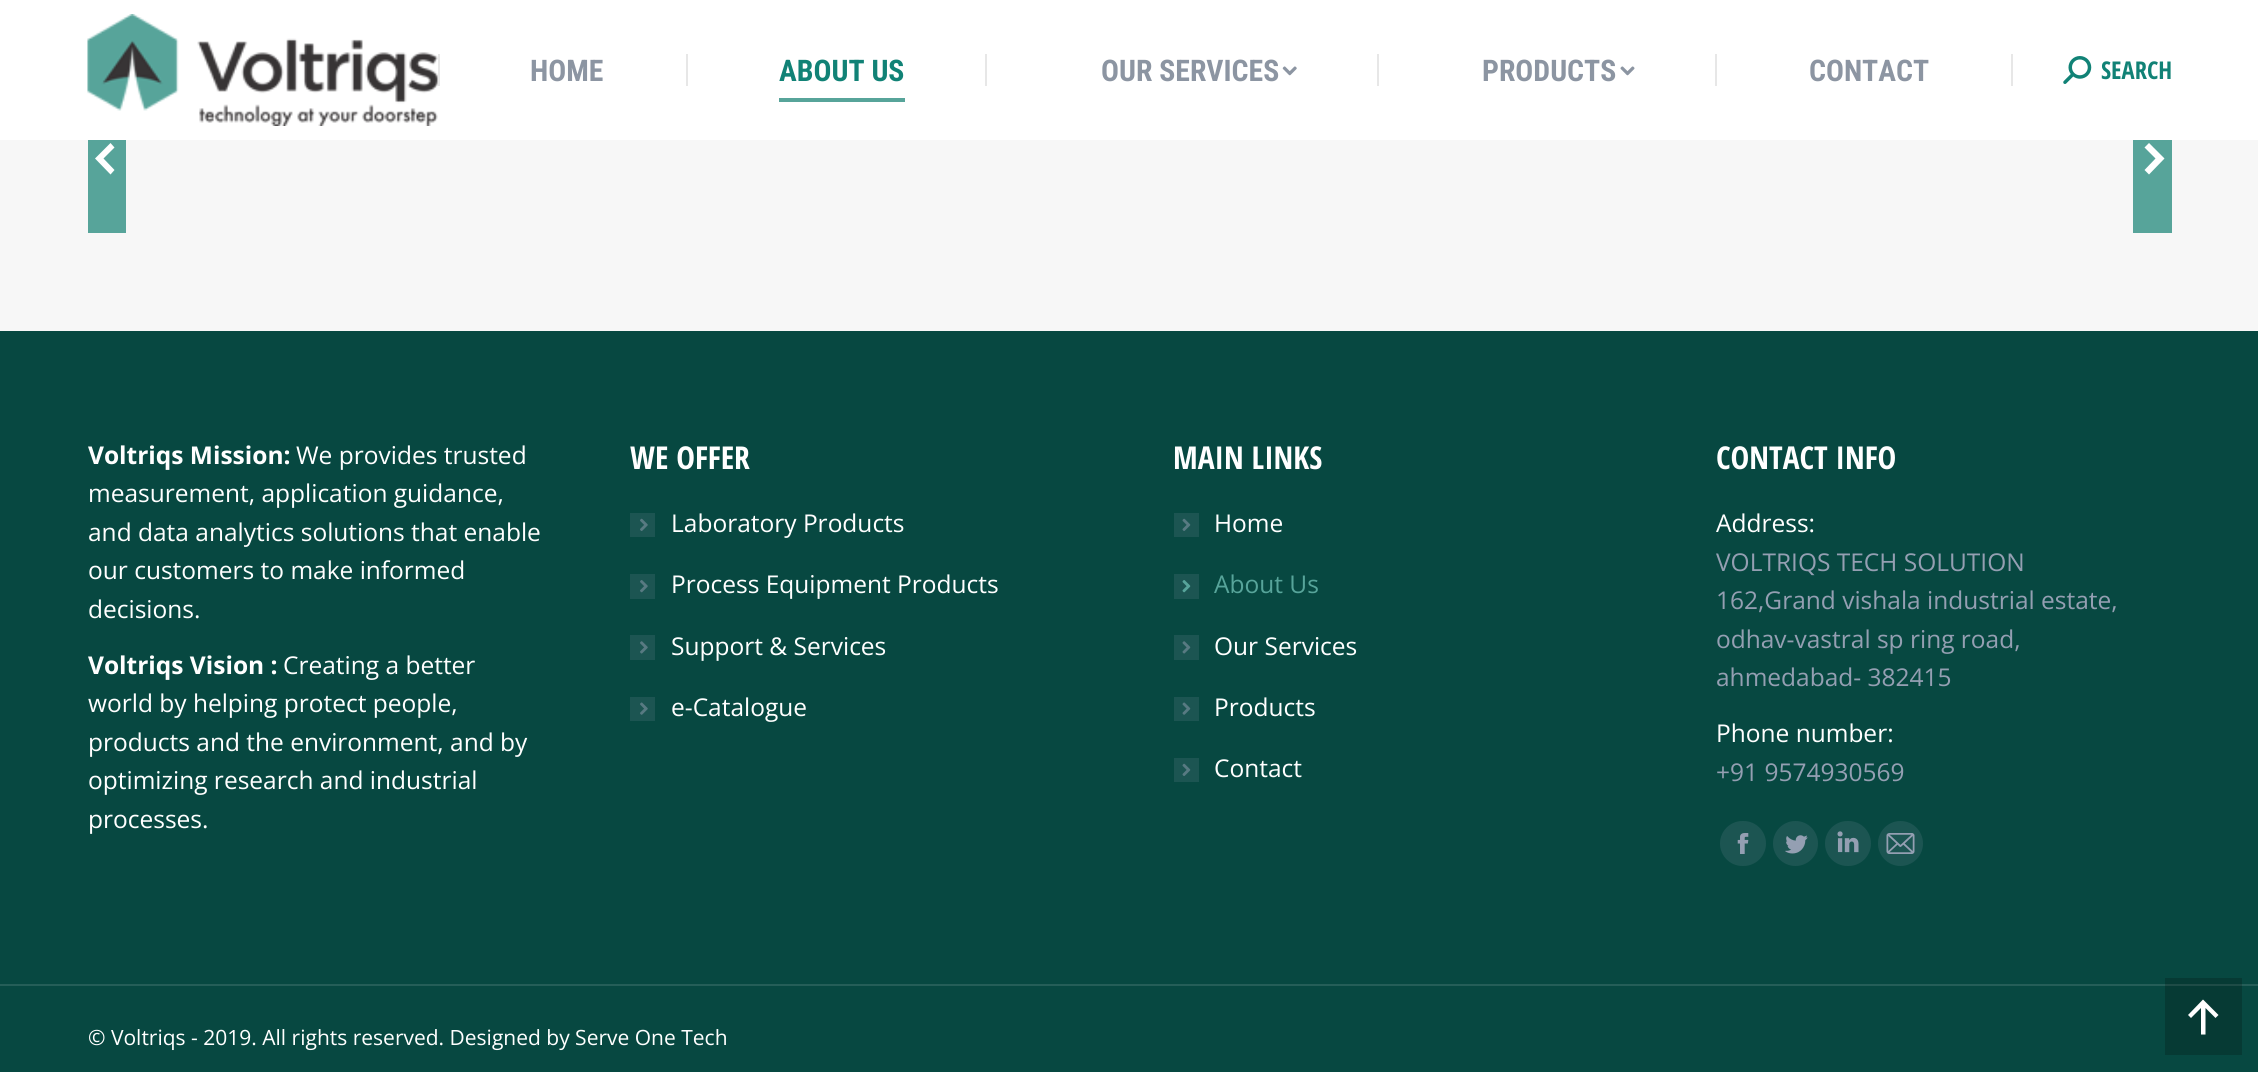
import math
import cairo

surface = cairo.ImageSurface(cairo.FORMAT_RGB24, 2258, 1072)
c = cairo.Context(surface)
options = cairo.FontOptions()
options.set_hint_metrics(cairo.HINT_METRICS_OFF)
options.set_hint_style(cairo.HINT_STYLE_NONE)
c.set_font_options(options)
c.set_miter_limit(4)
def C(code):
 c.set_source_rgb(*(v / 255 for v in bytes.fromhex(code[-6:])))
def F(family, size, italic, bold):
 c.select_font_face(family, cairo.FONT_SLANT_ITALIC if italic else cairo.FONT_SLANT_NORMAL, cairo.FONT_WEIGHT_BOLD if bold else cairo.FONT_WEIGHT_NORMAL)
 c.set_font_size(size)
def T(x, y, s):
 c.move_to(x, y)
 c.show_text(s)
def R(x, y, w, h):
 c.rectangle(x, y, w, h)
 c.fill()
def Q(x, y, w, h, r):
 c.new_sub_path()
 for i, (u, v) in enumerate([(x + w - r, y + h - r), (x + r, y + h - r), (x + r, y + r), (x + w - r, y + r)]):
  c.arc(u, v, r, i * math.pi / 2, (i + 1) * math.pi / 2)
 c.close_path()
def I(path, x, y, w, h):
 c.save()
 c.set_source_surface(cairo.ImageSurface.create_from_png(path), x, y)
 c.rectangle(x, y, w, h)
 c.fill()
 c.restore()
C('074841')
c.paint()
C('ffffff')
R(0,0,2258,140)
I('1.png',87,14,351,112)
C('e7e7e7')
R(438,54,2,32)
F('Roboto Condensed',29.75,0,1)
C('8c95a2')
T(530,81,'HOME')
C('e7e7e7')
R(686,54,2,32)
C('118276')
T(779,81,'ABOUT US')
C('57a49a')
R(779,98,126,4)
C('e7e7e7')
R(985,54,2,32)
C('8c95a2')
T(1101,81,'OUR SERVICES')
I('2.png',1282,66,15,10)
C('e7e7e7')
R(1377,54,2,32)
C('8c95a2')
T(1482,81,'PRODUCTS')
I('3.png',1620,66,15,10)
C('e7e7e7')
R(1715,54,2,32)
C('8c95a2')
T(1809,81,'CONTACT')
C('e7e7e7')
R(2011,54,2,32)
I('4.png',2063,56,29,28)
F('Open Sans Condensed',24.5,0,1)
C('118276')
T(2101,79,'SEARCH')
C('f7f7f7')
R(0,140,2258,191)
C('57a49a')
R(88,140,38,93)
C('ffffff')
c.new_path()
c.move_to(114.5,170)
c.line_to(103.5,158.5)
c.line_to(114.5,147.5)
c.line_to(110.5,143)
c.line_to(95,158.5)
c.line_to(110.5,174.5)
c.close_path()
c.fill()
C('57a49a')
R(2133,140,39,93)
C('ffffff')
c.new_path()
c.move_to(2149,174.5)
c.line_to(2164.5,158.5)
c.line_to(2149,143)
c.line_to(2144.5,147.5)
c.line_to(2155.5,158.5)
c.line_to(2144.5,170)
c.close_path()
c.fill()
C('063a34')
R(2165,978,77,77)
F('Open Sans',24.5,0,1)
C('ffffff')
T(88,464,'Voltriqs Mission:')
F('Open Sans',24.5,0,0)
T(296,464,'We provides trusted')
T(88,502,'measurement, application guidance,')
T(88,541,'and data analytics solutions that enable')
T(88,579,'our customers to make informed')
T(88,618,'decisions.')
F('Open Sans',24.5,0,1)
T(88,674,'Voltriqs Vision :')
F('Open Sans',24.5,0,0)
T(283,674,'Creating a better')
T(88,712,'world by helping protect people,')
T(88,751,'products and the environment, and by')
T(88,789,'optimizing research and industrial')
T(88,828,'processes.')
F('Open Sans Condensed',31.5,0,1)
T(630,469,'WE OFFER')
C('1c5552')
R(630,513,25,24)
F('Open Sans',24.5,0,0)
C('ffffff')
T(671,532,'Laboratory Products')
I('5.png',640,518,8,13)
C('1c5552')
R(630,574,25,25)
C('ffffff')
T(671,593,'Process Equipment Products')
I('6.png',640,580,8,13)
C('1c5552')
R(630,635,25,25)
C('ffffff')
T(671,655,'Support & Services')
I('7.png',640,641,8,13)
C('1c5552')
R(630,697,25,24)
C('ffffff')
T(671,716,'e-Catalogue')
I('8.png',640,702,8,13)
F('Open Sans Condensed',31.5,0,1)
T(1173,469,'MAIN LINKS')
C('1c5552')
R(1174,513,25,24)
F('Open Sans',24.5,0,0)
C('ffffff')
T(1214,532,'Home')
I('9.png',1182,518,9,13)
C('1c5552')
R(1174,574,25,25)
C('57a49a')
T(1214,593,'About Us')
I('10.png',1182,580,9,13)
C('1c5552')
R(1174,635,25,25)
C('ffffff')
T(1214,655,'Our Services')
I('11.png',1182,641,9,13)
C('1c5552')
R(1174,697,25,24)
C('ffffff')
T(1214,716,'Products')
I('12.png',1182,702,9,13)
C('1c5552')
R(1174,758,25,24)
C('ffffff')
T(1214,777,'Contact')
I('9.png',1182,763,9,13)
F('Open Sans Condensed',31.5,0,1)
T(1716,469,'CONTACT INFO')
F('Open Sans',24.5,0,0)
T(1716,532,'Address:')
C('949fb2')
T(1716,571,'VOLTRIQS TECH SOLUTION')
T(1716,609,'162,Grand vishala industrial estate,')
T(1716,648,'odhav-vastral sp ring road,')
T(1716,686,'ahmedabad- 382415')
C('ffffff')
T(1716,742,'Phone number:')
C('949fb2')
T(1716,781,'+91 9574930569')
C('1c5552')
Q(1720,821,46,45,22.5)
c.fill()
I('13.png',1737,833,12,21)
c.arc(1795.5,843.5,22.5,0,2 * math.pi)
c.fill()
I('14.png',1785,835,23,19)
Q(1825,821,46,45,22.5)
c.fill()
I('15.png',1837,831,22,22)
c.arc(1900.5,843.5,22.5,0,2 * math.pi)
c.fill()
I('16.png',1886,833,29,21)
C('255e58')
R(0,984,2258,2)
C('1e4b46')
R(2165,984,77,2)
F('Open Sans',21,0,0)
C('ffffff')
T(88,1045,'© Voltriqs - 2019. All rights reserved. Designed by Serve One Tech')
c.new_path()
c.move_to(2188,1015)
c.line_to(2191,1018)
c.line_to(2201,1008)
c.line_to(2201,1034.5)
c.line_to(2205.5,1034.5)
c.line_to(2205.5,1008)
c.line_to(2215.5,1018)
c.line_to(2218.5,1015)
c.line_to(2203,999.5)
c.close_path()
c.fill()
surface.write_to_png('o.png')
